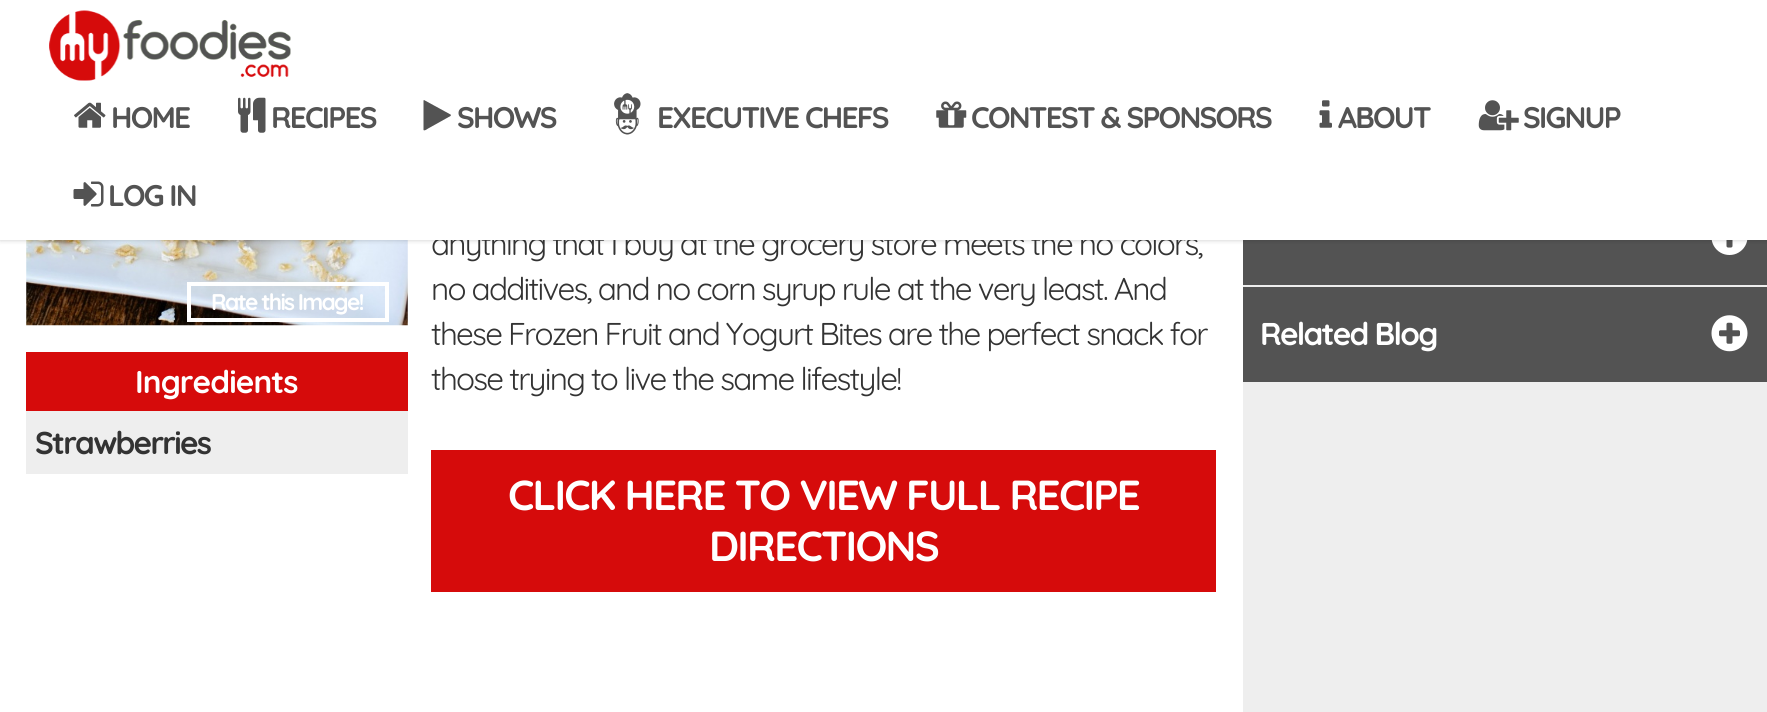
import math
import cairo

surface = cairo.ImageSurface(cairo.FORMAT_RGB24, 1767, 712)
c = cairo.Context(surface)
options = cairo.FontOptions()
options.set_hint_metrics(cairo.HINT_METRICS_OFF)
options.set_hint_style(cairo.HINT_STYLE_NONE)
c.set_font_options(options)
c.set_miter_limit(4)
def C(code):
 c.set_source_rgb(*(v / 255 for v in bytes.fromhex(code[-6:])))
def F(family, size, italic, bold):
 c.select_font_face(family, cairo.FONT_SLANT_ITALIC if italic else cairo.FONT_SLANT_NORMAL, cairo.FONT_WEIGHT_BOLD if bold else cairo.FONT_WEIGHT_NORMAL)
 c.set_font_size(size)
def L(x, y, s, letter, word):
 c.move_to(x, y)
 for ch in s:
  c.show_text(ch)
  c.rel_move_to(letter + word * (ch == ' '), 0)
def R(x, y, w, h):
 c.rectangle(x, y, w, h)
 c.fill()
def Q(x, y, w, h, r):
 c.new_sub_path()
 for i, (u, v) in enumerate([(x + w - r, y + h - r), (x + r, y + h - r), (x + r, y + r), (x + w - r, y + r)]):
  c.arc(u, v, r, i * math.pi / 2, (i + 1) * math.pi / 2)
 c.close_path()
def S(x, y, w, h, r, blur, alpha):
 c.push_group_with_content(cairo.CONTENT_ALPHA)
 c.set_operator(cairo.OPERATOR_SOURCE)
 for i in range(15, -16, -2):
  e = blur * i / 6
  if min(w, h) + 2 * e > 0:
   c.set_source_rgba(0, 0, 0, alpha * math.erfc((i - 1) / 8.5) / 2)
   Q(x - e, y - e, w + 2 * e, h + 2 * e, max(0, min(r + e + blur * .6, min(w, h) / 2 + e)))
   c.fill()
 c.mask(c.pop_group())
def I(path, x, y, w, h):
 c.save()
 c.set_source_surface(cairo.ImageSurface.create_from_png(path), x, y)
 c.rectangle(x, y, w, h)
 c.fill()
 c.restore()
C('ffffff')
c.paint()
I('9.png',26,240,382,86)
C('535353')
R(1243,240,524,45)
I('10.png',1711,240,37,15)
C('000000')
S(0,0,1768,240,0,2.5,.22)
F('Quicksand',31.5,0,0)
C('333333')
L(431,255,'anything that I buy at the grocery store meets the no colors,',-1.75,0)
C('ffffff')
R(0,0,1767,240)
I('1.png',49,10,242,71)
I('2.png',74,102,32,26)
F('Quicksand',29.75,0,1)
C('535353')
L(111,128,'HOME',-1.75,0)
I('3.png',238,97,28,36)
L(271,128,'RECIPES',-1.75,0)
c.new_path()
c.move_to(450.5,116)
c.line_to(429,128)
c.curve_to(428.5,128,424.5,131.5,423.5,130)
c.line_to(423.5,100.5)
c.line_to(424,100)
c.line_to(450.5,114.5)
c.line_to(451,115)
c.close_path()
c.fill()
L(457,128,'SHOWS',-1.75,0)
I('4.png',614,93,27,42)
L(657,128,'EXECUTIVE CHEFS',-1.75,0)
I('5.png',936,101,31,27)
L(971,128,'CONTEST & SPONSORS',-1.75,0)
I('6.png',1319,100,13,28)
L(1338,128,'ABOUT',-1.75,0)
I('7.png',1478,100,41,31)
L(1523,128,'SIGNUP',-1.75,0)
I('8.png',73,181,31,26)
L(108,206,'LOG IN',-1.75,0)
c.rectangle(189,284,198,36)
C('ffffff')
c.set_line_width(4)
c.stroke()
F('Quicksand',22.75,0,1)
L(211,310,'Rate this Image!',-1.75,0)
C('d60b0b')
R(26,352,382,59)
F('Quicksand',31.5,0,1)
C('ffffff')
L(135,393,'Ingredients',-.9,0)
C('eeeeee')
R(26,411,382,63)
C('333333')
L(35,454,'Strawberries',-1.75,0)
F('Quicksand',31.5,0,0)
L(431,300,'no additives, and no corn syrup rule at the very least. And',-1.75,0)
L(431,345,'these Frozen Fruit and Yogurt Bites are the perfect snack for',-1.75,0)
L(431,390,'those trying to live the same lifestyle!',-1.75,0)
C('d60b0b')
R(431,450,785,142)
F('Quicksand',42,0,1)
C('ffffff')
L(508,510,'CLICK HERE TO VIEW FULL RECIPE',-1.75,0)
L(709,561,'DIRECTIONS',-1.75,0)
C('eeeeee')
R(1243,285,524,427)
C('535353')
R(1243,287,524,95)
F('Quicksand',31.5,0,1)
C('ffffff')
L(1260,345,'Related Blog',-1.75,0)
I('11.png',1711,315,37,37)
surface.write_to_png('o.png')
